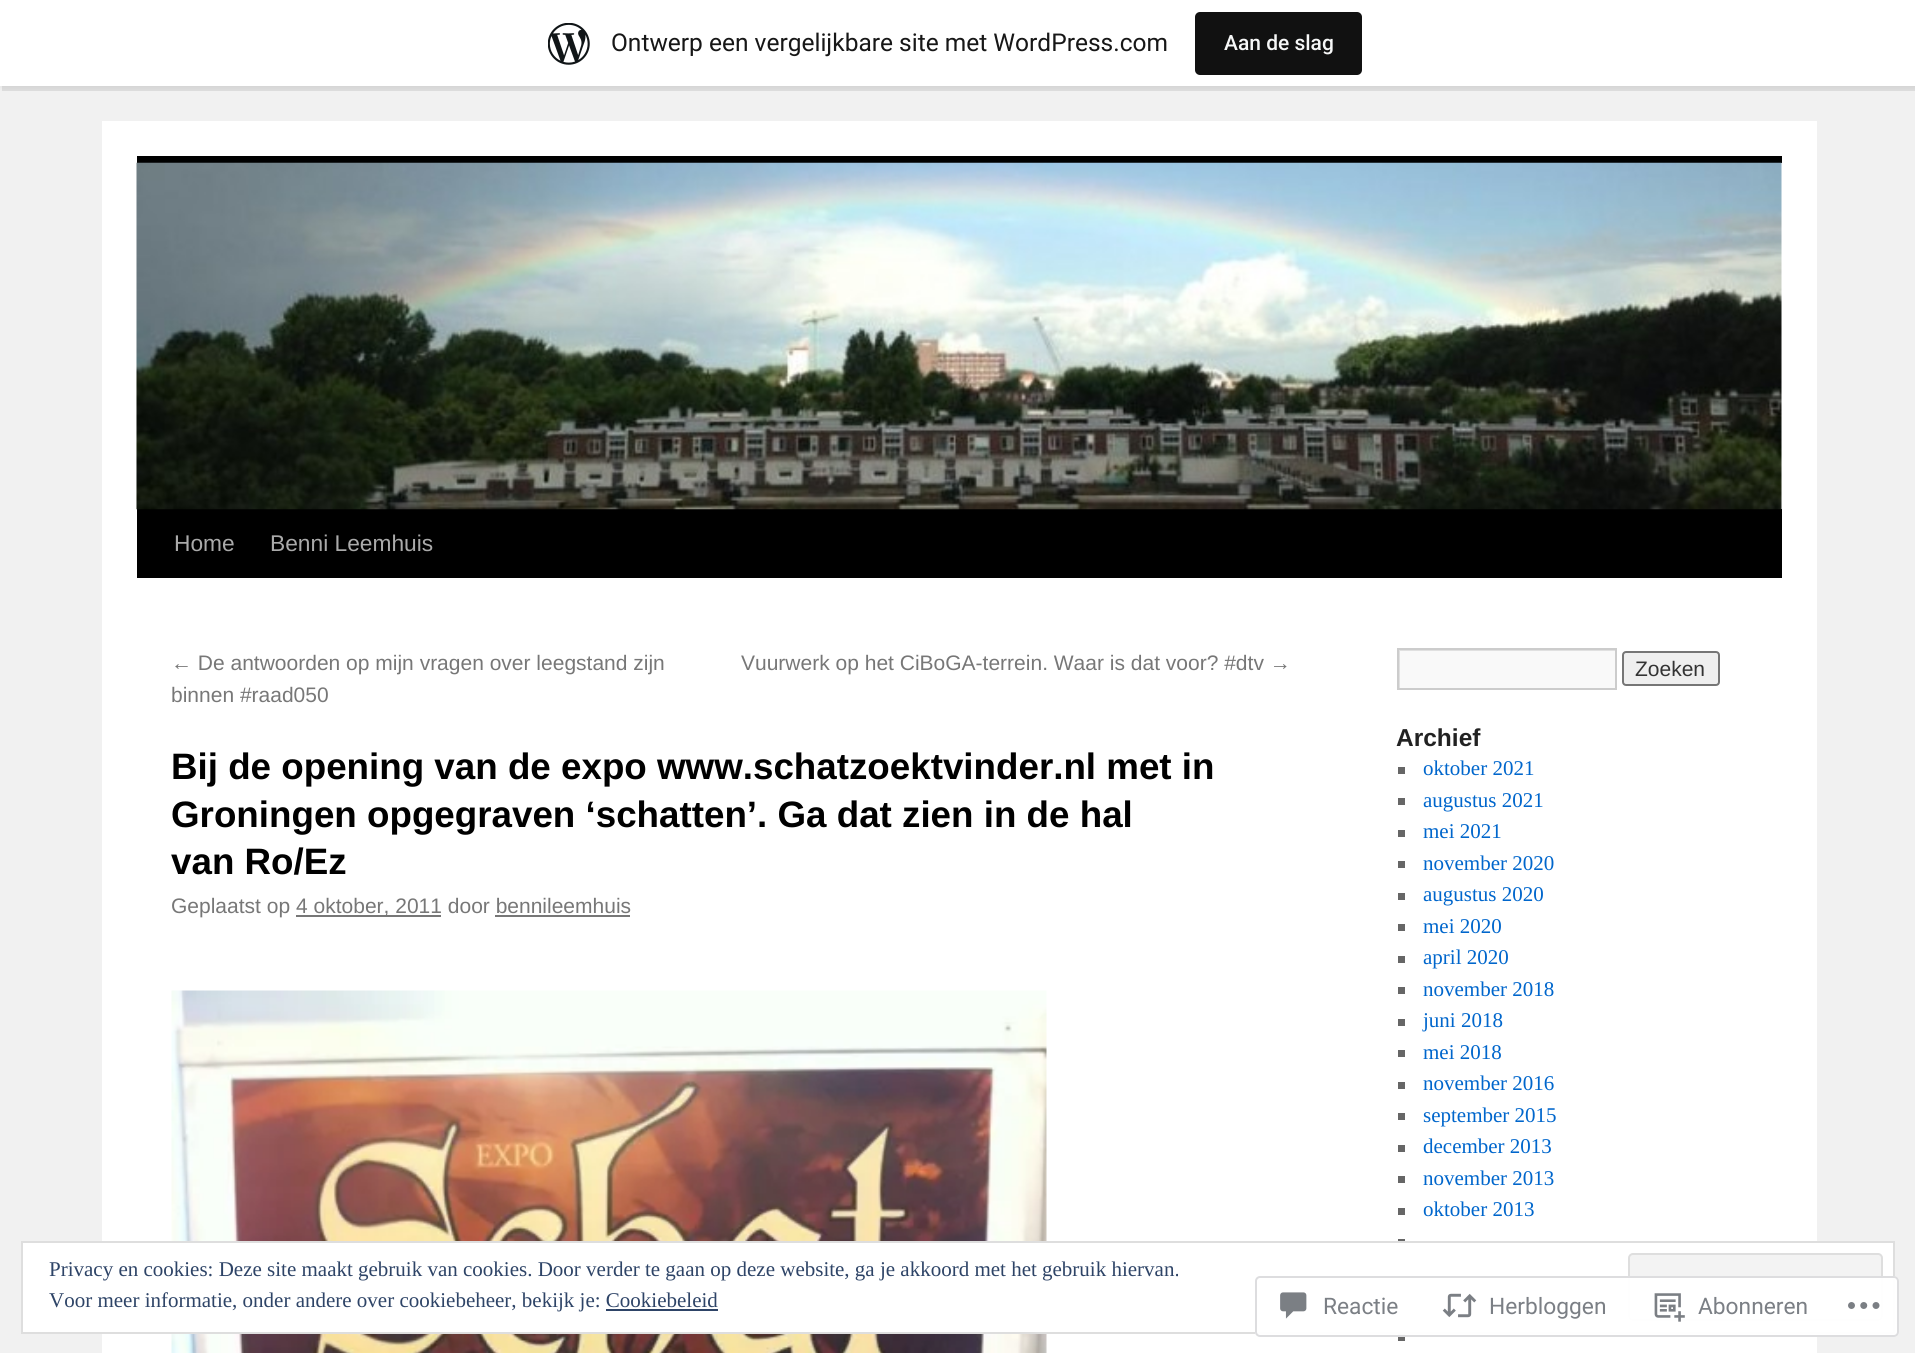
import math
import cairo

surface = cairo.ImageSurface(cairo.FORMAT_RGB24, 1915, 1353)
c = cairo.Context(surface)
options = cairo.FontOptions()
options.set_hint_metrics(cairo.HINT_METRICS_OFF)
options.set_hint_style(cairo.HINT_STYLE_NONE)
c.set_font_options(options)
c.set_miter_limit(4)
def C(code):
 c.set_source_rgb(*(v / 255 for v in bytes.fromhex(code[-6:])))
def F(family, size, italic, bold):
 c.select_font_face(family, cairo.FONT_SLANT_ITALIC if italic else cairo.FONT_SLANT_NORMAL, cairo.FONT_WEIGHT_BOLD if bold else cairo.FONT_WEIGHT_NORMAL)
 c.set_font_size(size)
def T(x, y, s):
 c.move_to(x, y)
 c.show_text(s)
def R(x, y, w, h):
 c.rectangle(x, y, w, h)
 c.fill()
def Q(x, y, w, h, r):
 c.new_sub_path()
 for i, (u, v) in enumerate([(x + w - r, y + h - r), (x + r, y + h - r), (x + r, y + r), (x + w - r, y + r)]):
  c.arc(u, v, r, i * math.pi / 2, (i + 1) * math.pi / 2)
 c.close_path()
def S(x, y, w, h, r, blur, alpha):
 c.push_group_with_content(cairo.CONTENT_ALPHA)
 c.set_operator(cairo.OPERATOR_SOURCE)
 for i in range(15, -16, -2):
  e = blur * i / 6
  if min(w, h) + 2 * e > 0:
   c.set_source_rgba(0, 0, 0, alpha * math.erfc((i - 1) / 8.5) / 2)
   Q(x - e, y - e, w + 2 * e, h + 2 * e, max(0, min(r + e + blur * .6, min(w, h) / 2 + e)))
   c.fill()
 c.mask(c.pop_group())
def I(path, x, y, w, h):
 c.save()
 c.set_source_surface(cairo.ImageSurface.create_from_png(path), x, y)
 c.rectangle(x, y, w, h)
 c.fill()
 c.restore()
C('f1f1f1')
c.paint()
C('000000')
S(0,2,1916,86,0,2,.05)
c.set_source_rgba(0,0,0,0.08)
c.new_path()
c.move_to(2,86)
c.line_to(2,91)
c.line_to(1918,91)
c.line_to(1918,5)
c.line_to(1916,5)
c.line_to(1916,86)
c.close_path()
c.fill()
C('ffffff')
R(0,0,1915,86)
I('1.png',548,23,42,42)
F('Roboto',24.5,0,0)
C('171717')
T(611,51,'Ontwerp een vergelijkbare site met WordPress.com')
C('111111')
Q(1195,12,167,63,5)
c.fill()
F('Roboto Medium',21,0,0)
C('f6f7f7')
T(1224,50,'Aan de slag')
C('ffffff')
R(102,121,1715,1232)
C('000000')
R(137,156,1645,7)
R(137,509,1645,69)
I('2.png',136,162,1646,348)
F('Liberation Sans',22.75,0,0)
C('aaaaaa')
T(174,551,'Home')
T(270,551,'Benni Leemhuis')
F('Liberation Sans',21,0,0)
C('777777')
T(171,670,'← De antwoorden op mijn vragen over leegstand zijn')
T(171,702,'binnen #raad050')
T(741,670,'Vuurwerk op het CiBoGA-terrein. Waar is dat voor? #dtv →')
F('Liberation Sans',36.75,0,1)
C('000000')
T(171,779,'Bij de opening van de expo www.schatzoektvinder.nl met in')
T(171,827,'Groningen opgegraven ‘schatten’. Ga dat zien in de hal')
T(171,874,'van Ro/Ez')
F('Liberation Sans',21,0,0)
C('777777')
T(171,913,'Geplaatst op')
R(296,915,145,2)
T(296,913,'4 oktober, 2011 door bennileemhuis')
R(495,915,135,2)
I('3.png',171,990,876,363)
C('f9f9f9')
R(1400,651,215,37)
c.save()
c.rectangle(1398,649,217,39)
c.clip()
C('e0e0e0')
c.set_fill_rule(cairo.FILL_RULE_EVEN_ODD)
c.new_path()
c.move_to(1225,476)
c.line_to(1788,476)
c.line_to(1788,861)
c.line_to(1225,861)
c.close_path()
c.move_to(1400,651)
c.line_to(1617,651)
c.line_to(1617,690)
c.line_to(1400,690)
c.close_path()
c.fill()
c.restore()
c.rectangle(1398,649,218,40)
C('cccccc')
c.stroke()
C('efefef')
Q(1623,652,96,33,3)
c.fill_preserve()
C('767676')
c.stroke()
C('333333')
T(1635,676,'Zoeken')
F('Liberation Sans',24.5,0,1)
C('222222')
T(1396,746,'Archief')
C('666666')
R(1398,767,7,7)
F('Liberation Serif',21,0,0)
C('0066cc')
T(1423,775,'oktober 2021')
C('666666')
R(1398,798,7,7)
C('0066cc')
T(1423,807,'augustus 2021')
C('666666')
R(1398,830,7,7)
C('0066cc')
T(1423,838,'mei 2021')
C('666666')
R(1398,861,7,7)
C('0066cc')
T(1423,870,'november 2020')
C('666666')
R(1398,893,7,7)
C('0066cc')
T(1423,901,'augustus 2020')
C('666666')
R(1398,924,7,7)
C('0066cc')
T(1423,933,'mei 2020')
C('666666')
R(1398,956,7,7)
C('0066cc')
T(1423,964,'april 2020')
C('666666')
R(1398,987,7,7)
C('0066cc')
T(1423,996,'november 2018')
C('666666')
R(1398,1019,7,7)
C('0066cc')
T(1423,1027,'juni 2018')
C('666666')
R(1398,1050,7,7)
C('0066cc')
T(1423,1059,'mei 2018')
C('666666')
R(1398,1082,7,7)
C('0066cc')
T(1423,1090,'november 2016')
C('666666')
R(1398,1113,7,7)
C('0066cc')
T(1423,1122,'september 2015')
C('666666')
R(1398,1145,7,7)
C('0066cc')
T(1423,1153,'december 2013')
C('666666')
R(1398,1176,7,7)
C('0066cc')
T(1423,1185,'november 2013')
C('666666')
R(1398,1208,7,7)
C('0066cc')
T(1423,1216,'oktober 2013')
C('666666')
R(1398,1239,7,2)
R(1398,1334,7,7)
C('ffffff')
c.rectangle(22,1242,1872,91)
c.fill_preserve()
C('dedede')
c.stroke()
C('2e4467')
T(49,1276,'Privacy en cookies: Deze site maakt gebruik van cookies. Door verder te gaan op deze website, ga je akkoord met het gebruik hiervan.')
C('f3f3f3')
Q(1629,1254,253,66,4)
c.fill_preserve()
C('dedede')
c.stroke()
C('2e4467')
T(49,1307,'Voor meer informatie, onder andere over cookiebeheer, bekijk je: Cookiebeleid')
R(606,1309,112,2)
c.set_source_rgba(1,1,1,0.98)
Q(1255,1276,644,61,5)
c.fill()
Q(1256,1277,642,59,4)
c.set_source_rgba(0.863,0.863,0.871,0.98)
c.stroke()
I('4.png',1280,1292,27,27)
F('Roboto',22.75,0,0)
C('7b7f85')
T(1323,1314,'Reactie')
I('5.png',1442,1293,35,25)
T(1489,1314,'Herbloggen')
I('6.png',1654,1293,31,29)
T(1698,1314,'Abonneren')
I('7.png',1848,1302,32,7)
surface.write_to_png('o.png')
